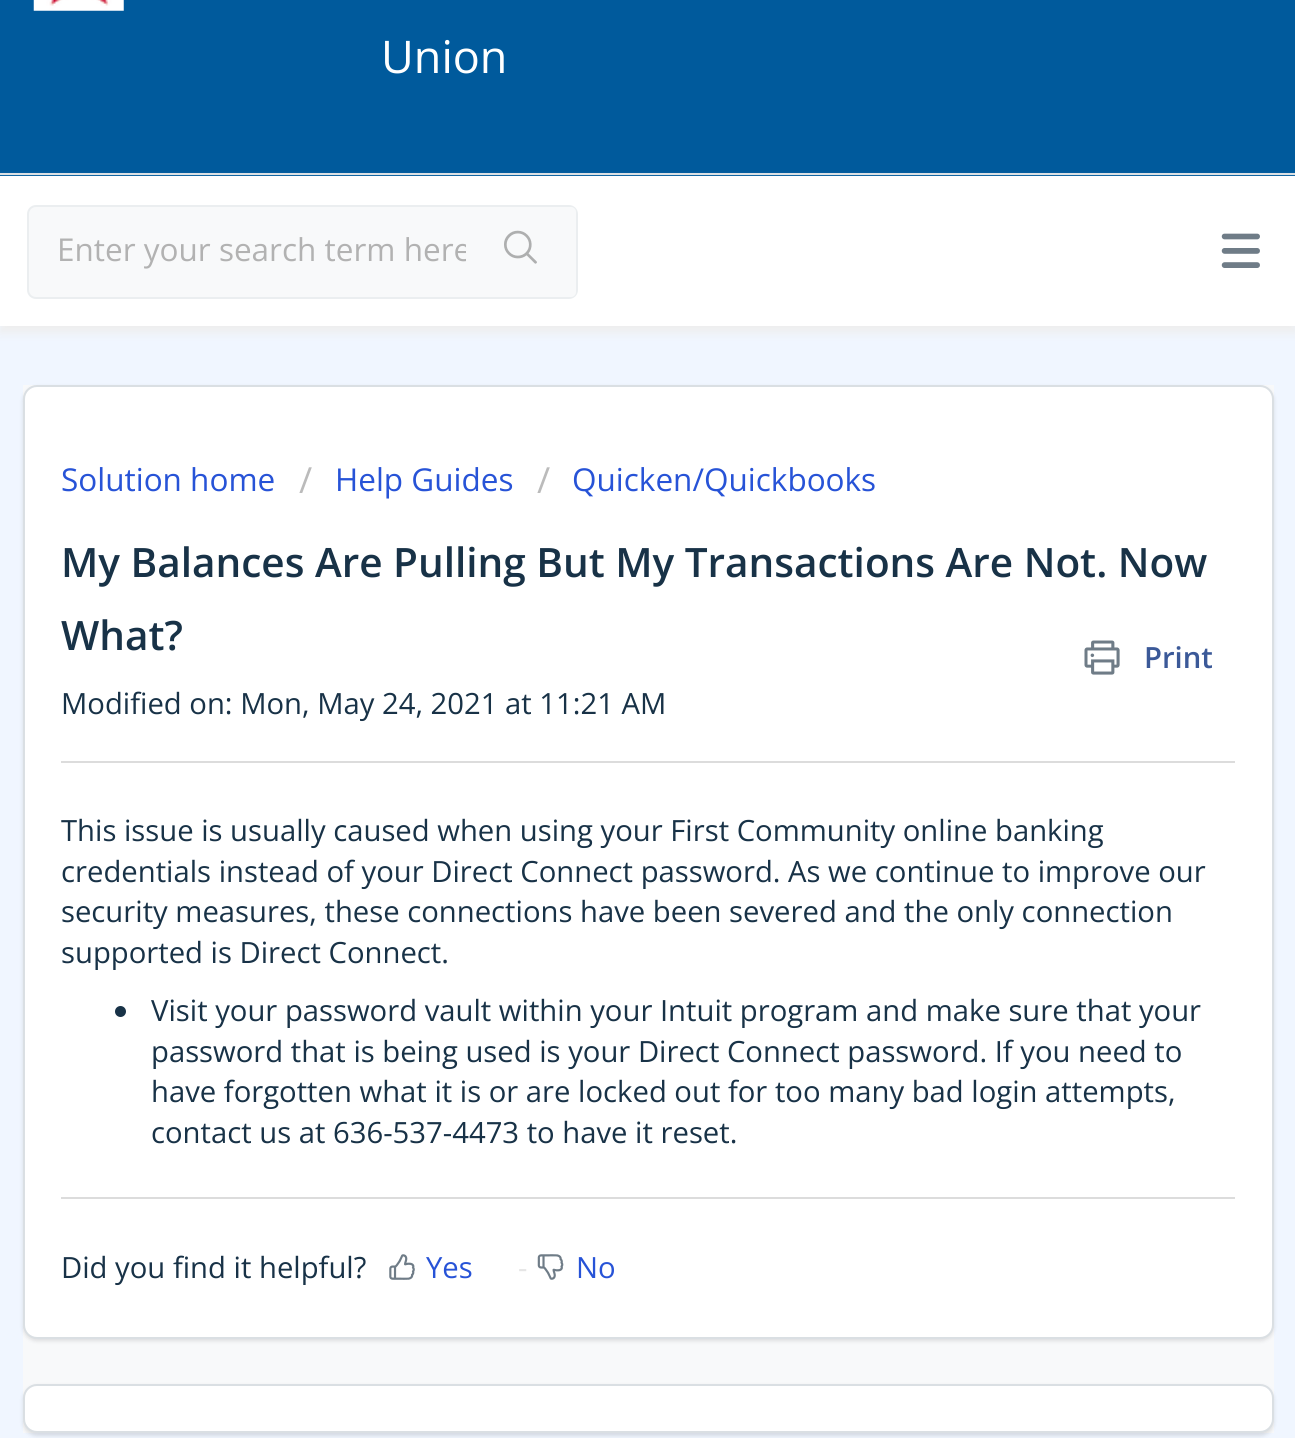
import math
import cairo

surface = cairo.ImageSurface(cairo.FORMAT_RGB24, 1295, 1438)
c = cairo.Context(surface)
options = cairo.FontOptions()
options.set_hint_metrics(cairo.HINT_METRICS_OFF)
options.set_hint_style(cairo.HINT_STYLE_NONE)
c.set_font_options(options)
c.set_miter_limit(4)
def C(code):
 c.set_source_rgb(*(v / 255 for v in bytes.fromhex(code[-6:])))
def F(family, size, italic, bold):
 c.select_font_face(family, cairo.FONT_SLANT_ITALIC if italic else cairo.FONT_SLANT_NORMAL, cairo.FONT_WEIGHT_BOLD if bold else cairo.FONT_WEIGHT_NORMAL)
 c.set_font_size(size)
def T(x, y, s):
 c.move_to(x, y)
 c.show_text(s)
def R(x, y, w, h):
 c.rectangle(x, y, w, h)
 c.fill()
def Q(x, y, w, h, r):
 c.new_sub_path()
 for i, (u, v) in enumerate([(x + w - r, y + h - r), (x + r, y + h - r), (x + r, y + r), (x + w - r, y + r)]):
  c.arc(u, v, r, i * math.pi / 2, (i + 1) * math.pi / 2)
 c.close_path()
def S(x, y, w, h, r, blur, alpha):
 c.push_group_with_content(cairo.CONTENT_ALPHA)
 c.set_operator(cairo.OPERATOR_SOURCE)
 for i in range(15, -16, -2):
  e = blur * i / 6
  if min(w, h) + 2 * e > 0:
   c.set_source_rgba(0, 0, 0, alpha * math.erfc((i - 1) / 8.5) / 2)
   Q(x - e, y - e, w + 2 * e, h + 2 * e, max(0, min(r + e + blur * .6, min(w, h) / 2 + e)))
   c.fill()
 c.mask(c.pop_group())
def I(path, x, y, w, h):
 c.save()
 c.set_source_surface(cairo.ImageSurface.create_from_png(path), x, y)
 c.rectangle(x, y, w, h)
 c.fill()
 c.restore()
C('f0f6ff')
c.paint()
C('005a9c')
R(0,0,1295,176)
C('dadfe3')
R(0,173,1295,2)
I('1.png',33,0,91,11)
F('Open Sans',45,0,0)
C('ffffff')
T(381,73,'Union')
C('eeeeee')
S(0,182,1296,151,0,4.5,1)
C('ffffff')
R(0,176,1295,150)
I('2.png',1221,233,39,35)
C('f8f9fa')
Q(28,206,549,92,8)
c.fill_preserve()
C('ebeef0')
c.stroke()
F('Open Sans',31.5,0,0)
C('b2b2b2')
T(57,261,'Enter your search term here')
C('f8f9fa')
Q(466,207,110,90,5)
c.fill()
I('3.png',504,230,33,34)
R(23,385,1251,1048)
C('3f3f44')
S(23,387,1251,954,14,2,.15)
C('ffffff')
Q(24,386,1249,952,13)
c.fill_preserve()
C('dadfe3')
c.stroke()
C('2753d7')
T(61,491,'Solution home')
F('Open Sans',36,0,0)
C('bbbbbb')
T(299,493,'/')
F('Open Sans',31.5,0,0)
C('2753d7')
T(335,491,'Help Guides')
F('Open Sans',36,0,0)
C('bbbbbb')
T(537,493,'/')
F('Open Sans',31.5,0,0)
C('2753d7')
T(572,491,'Quicken/Quickbooks')
F('Open Sans SemiBold',40.5,0,0)
C('183247')
T(61,577,'My Balances Are Pulling But My Transactions Are Not. Now')
T(61,650,'What?')
I('4.png',1084,640,36,35)
F('Open Sans SemiBold',29.25,0,0)
C('3b5998')
T(1144,668,'Print')
F('Open Sans',29.25,0,0)
C('183247')
T(61,714,'Modified on: Mon, May 24, 2021 at 11:21 AM')
C('dcdcdc')
R(61,761,1174,2)
C('183247')
T(61,841,'This issue is usually caused when using your First Community online banking')
T(61,882,'credentials instead of your Direct Connect password. As we continue to improve our')
T(61,922,'security measures, these connections have been severed and the only connection')
T(61,963,'supported is Direct Connect.')
c.new_path()
c.arc(120.5,1011.5,5.5,0,2 * math.pi)
c.fill()
T(151,1021,'Visit your password vault within your Intuit program and make sure that your')
T(151,1062,'password that is being used is your Direct Connect password. If you need to')
T(151,1102,'have forgotten what it is or are locked out for too many bad login attempts,')
T(151,1143,'contact us at 636-537-4473 to have it reset.')
C('dcdcdc')
R(61,1197,1174,2)
C('183247')
T(61,1278,'Did you find it helpful?')
I('5.png',389,1254,26,26)
C('2753d7')
T(426,1278,'Yes')
C('e5e5e5')
T(518,1278,'-')
I('6.png',537,1254,27,26)
C('2753d7')
T(576,1278,'No')
C('3f3f44')
S(23,1386,1251,50,14,2,.15)
C('ffffff')
Q(24,1385,1249,47,13)
c.fill_preserve()
C('dadfe3')
c.stroke()
surface.write_to_png('o.png')
